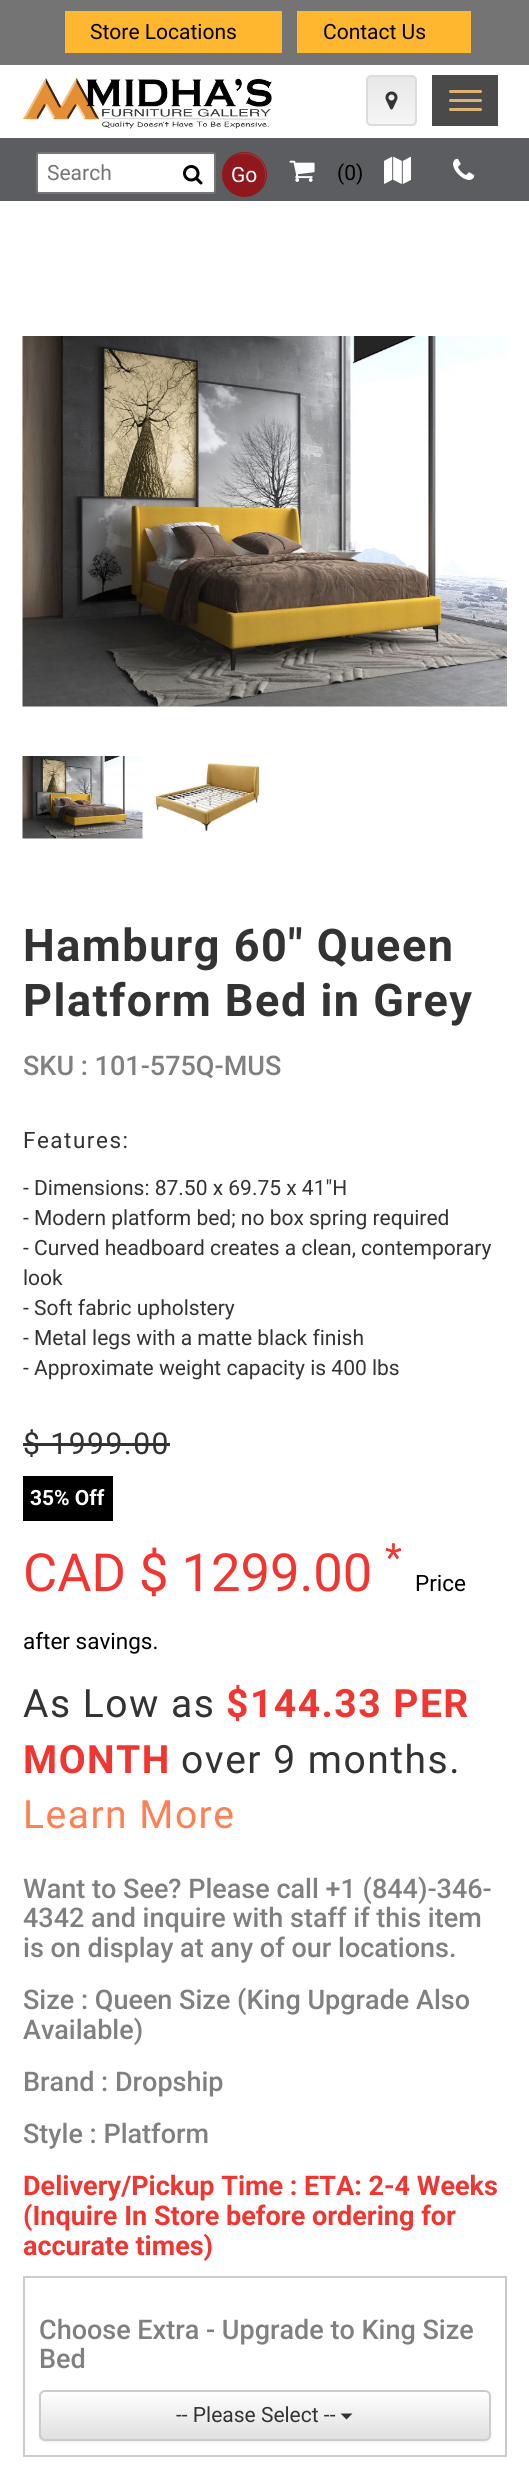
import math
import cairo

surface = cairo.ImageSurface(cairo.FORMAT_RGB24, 529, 2474)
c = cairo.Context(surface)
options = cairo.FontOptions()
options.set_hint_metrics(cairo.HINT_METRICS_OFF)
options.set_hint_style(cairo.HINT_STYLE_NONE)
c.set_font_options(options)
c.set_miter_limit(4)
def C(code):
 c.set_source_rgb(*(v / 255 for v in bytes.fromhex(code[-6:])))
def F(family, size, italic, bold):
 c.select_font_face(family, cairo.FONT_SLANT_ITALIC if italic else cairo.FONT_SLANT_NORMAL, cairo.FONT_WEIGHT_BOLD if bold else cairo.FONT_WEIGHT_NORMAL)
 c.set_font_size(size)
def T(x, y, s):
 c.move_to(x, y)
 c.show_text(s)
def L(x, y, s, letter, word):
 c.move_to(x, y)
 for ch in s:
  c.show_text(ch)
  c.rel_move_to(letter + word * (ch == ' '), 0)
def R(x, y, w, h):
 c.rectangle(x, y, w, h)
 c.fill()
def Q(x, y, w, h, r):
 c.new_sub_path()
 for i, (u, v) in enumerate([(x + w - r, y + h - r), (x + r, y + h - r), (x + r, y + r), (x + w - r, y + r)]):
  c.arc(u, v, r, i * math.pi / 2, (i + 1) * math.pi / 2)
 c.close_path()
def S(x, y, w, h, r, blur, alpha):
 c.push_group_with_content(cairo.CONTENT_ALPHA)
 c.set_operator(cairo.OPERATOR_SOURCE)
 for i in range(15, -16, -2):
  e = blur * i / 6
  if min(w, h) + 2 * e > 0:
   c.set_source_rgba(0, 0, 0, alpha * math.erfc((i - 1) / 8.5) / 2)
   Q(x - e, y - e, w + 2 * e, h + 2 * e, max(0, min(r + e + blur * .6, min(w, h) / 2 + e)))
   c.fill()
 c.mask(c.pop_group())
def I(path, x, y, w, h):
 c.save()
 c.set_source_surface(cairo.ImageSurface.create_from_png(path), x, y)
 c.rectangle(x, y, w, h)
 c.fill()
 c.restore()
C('ffffff')
c.paint()
C('747474')
R(0,0,529,65)
C('feb72e')
R(65,11,217,42)
F('Roboto',21,0,0)
C('000000')
T(90,39,'Store Locations')
C('feb72e')
R(297,11,174,42)
C('000000')
T(323,39,'Contact Us')
I('1.png',23,77,249,52)
c.save()
Q(366,75,51,51,5)
c.clip()
gradient = cairo.LinearGradient(392,77,392,125)
gradient.add_color_stop_rgba(0,0.91,0.91,0.91,1)
gradient.add_color_stop_rgba(1,0.961,0.961,0.961,1)
c.set_source(gradient)
R(366,77,51,48)
c.restore()
Q(367,76,49,49,4)
C('dcdcdc')
c.stroke()
I('2.png',385,91,13,19)
C('4a4a4a')
R(432,75,66,51)
C('dcb373')
Q(449,90,33,3,1.5)
c.fill()
Q(449,99,33,3,1.5)
c.fill()
Q(449,108,33,3,1.5)
c.fill()
C('5c5d60')
R(0,138,529,63)
C('ffffff')
Q(37,153,178,40,2)
c.fill_preserve()
C('767676')
c.stroke()
C('757575')
T(47,180,'Search')
C('8f171d')
c.new_path()
c.arc(244.5,174.5,22.5,0,2 * math.pi)
c.fill()
C('a03a3f')
c.new_path()
c.move_to(244,154)
c.curve_to(263.5,154,269.5,174,262,186.5)
c.curve_to(268,178,267,166.5,260,159)
c.curve_to(251.5,151,238,151,230,159.5)
c.curve_to(233.5,156,238,154,244,154)
c.close_path()
c.fill()
I('3.png',183,165,20,20)
C('ffffff')
T(231,182,'Go')
I('4.png',289,160,26,22)
C('000000')
T(337,180,'(0)')
I('5.png',384,156,27,28)
I('6.png',453,158,22,22)
I('7.png',22,336,485,371)
I('8.png',22,756,121,83)
I('9.png',154,759,108,73)
F('Roboto',45,0,1)
C('333333')
L(23,961,'Hamburg 60" Queen',1.5,0)
L(23,1016,'Platform Bed in Grey',1.5,0)
F('Roboto Medium',27,0,0)
C('808080')
T(23,1075,'SKU : 101-575Q-MUS')
F('Roboto',22.5,0,0)
C('333333')
L(23,1148,'Features:',1.5,0)
F('Roboto',21,0,0)
T(23,1195,'- Dimensions: 87.50 x 69.75 x 41"H')
T(23,1225,'- Modern platform bed; no box spring required')
T(23,1255,'- Curved headboard creates a clean, contemporary')
T(23,1285,'look')
T(23,1315,'- Soft fabric upholstery')
T(23,1345,'- Metal legs with a matte black finish')
T(23,1375,'- Approximate weight capacity is 400 lbs')
F('Roboto',30,0,0)
L(23,1454,'$ 1999.00',1.5,0)
R(23,1443,147,3)
C('000000')
R(23,1476,90,45)
F('Roboto',21,0,1)
C('ffffff')
T(30,1505,'35% Off')
F('Roboto',52.5,0,0)
C('f13631')
T(23,1591,'CAD $ 1299.00')
F('Roboto',39,0,0)
T(385,1571,'*')
F('Roboto',22.5,0,0)
C('000000')
T(415,1591,'Price')
T(23,1649,'after savings.')
F('Roboto',39,0,0)
C('333333')
L(23,1717,'As Low as',1.5,0)
F('Roboto',39,0,1)
C('f13631')
L(226,1717,'$144.33 PER',1.5,0)
L(23,1773,'MONTH',1.5,0)
F('Roboto',39,0,0)
C('333333')
L(181,1773,'over 9 months.',1.5,0)
C('ff7f50')
L(23,1828,'Learn More',1.5,0)
F('Roboto Medium',27,0,0)
C('808080')
T(23,1898,'Want to See? Please call +1 (844)-346-')
T(23,1927,'4342 and inquire with staff if this item')
T(23,1957,'is on display at any of our locations.')
T(23,2009,'Size : Queen Size (King Upgrade Also')
T(23,2039,'Available)')
T(23,2091,'Brand : Dropship')
T(23,2143,'Style : Platform')
F('Roboto',27,0,1)
C('f13631')
T(23,2195,'Delivery/Pickup Time : ETA: 2-4 Weeks')
T(23,2225,'(Inquire In Store before ordering for')
T(23,2255,'accurate times)')
c.rectangle(24,2277,482,179)
C('cccccc')
c.stroke()
F('Roboto Medium',27,0,0)
C('808080')
T(39,2339,'Choose Extra - Upgrade to King Size')
T(39,2368,'Bed')
C('000000')
S(39,2391,452,51,6,1,.07)
c.save()
Q(39,2390,452,51,6)
c.clip()
gradient = cairo.LinearGradient(265,2391,265,2439)
gradient.add_color_stop_rgba(0,1,1,1,1)
gradient.add_color_stop_rgba(1,0.878,0.878,0.878,1)
c.set_source(gradient)
R(39,2391,452,48)
c.restore()
Q(40,2391,450,49,5)
C('cccccc')
c.stroke()
F('Roboto',21,0,0)
C('333333')
T(176,2422,'-- Please Select --')
c.new_path()
c.move_to(340.5,2413.5)
c.line_to(352.5,2413.5)
c.line_to(346.5,2419.5)
c.close_path()
c.fill()
surface.write_to_png('o.png')
